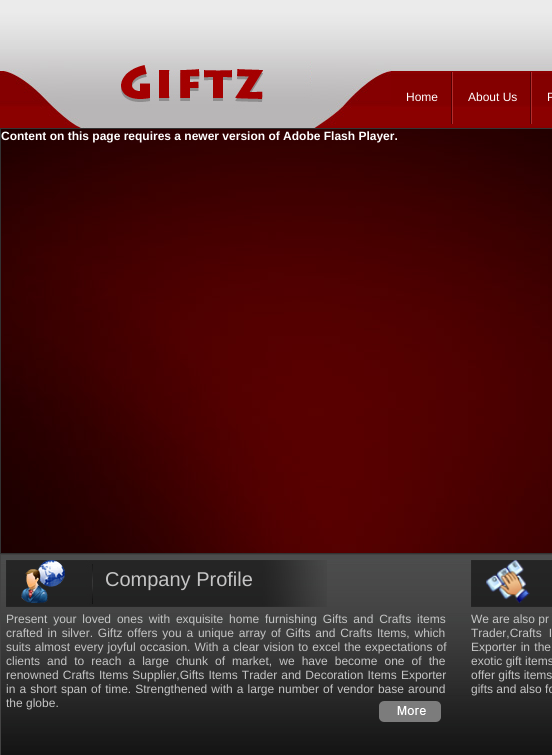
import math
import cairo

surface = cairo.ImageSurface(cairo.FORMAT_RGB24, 552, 755)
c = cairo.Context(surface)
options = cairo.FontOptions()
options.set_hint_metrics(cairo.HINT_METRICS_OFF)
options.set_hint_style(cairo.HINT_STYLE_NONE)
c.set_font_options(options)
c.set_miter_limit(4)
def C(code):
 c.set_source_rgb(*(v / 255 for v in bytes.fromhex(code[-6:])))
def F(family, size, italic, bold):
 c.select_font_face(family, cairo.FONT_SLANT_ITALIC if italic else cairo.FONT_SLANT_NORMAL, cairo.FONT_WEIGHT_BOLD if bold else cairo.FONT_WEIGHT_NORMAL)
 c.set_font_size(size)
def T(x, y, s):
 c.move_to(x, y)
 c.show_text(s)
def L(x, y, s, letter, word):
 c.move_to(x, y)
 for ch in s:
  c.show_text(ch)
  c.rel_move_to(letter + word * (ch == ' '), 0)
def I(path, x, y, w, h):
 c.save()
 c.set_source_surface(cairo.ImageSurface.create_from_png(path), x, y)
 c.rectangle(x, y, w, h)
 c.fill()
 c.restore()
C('ffffff')
c.paint()
I('1.png',0,0,552,128)
I('2.png',1,129,551,424)
I('3.png',0,61,391,67)
I('4.png',451,72,2,52)
F('Liberation Sans',12,0,0)
C('ffffff')
T(406,101,'Home')
I('4.png',530,72,2,52)
T(468,101,'About Us')
T(547,101,'P')
c.rectangle(.5,128.5,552,425)
C('333333')
c.set_line_width(1)
c.stroke()
F('Liberation Sans',12,0,1)
C('ffffff')
T(1,140,'Content on this page requires a newer version of Adobe Flash Player.')
I('5.png',1,555,551,200)
c.rectangle(.5,554.5,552,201)
C('434343')
c.stroke()
I('6.png',6,560,321,47)
I('7.png',21,560,44,43)
F('Liberation Sans',20,0,0)
C('c5c5c5')
T(105,586,'Company Profile')
F('Liberation Sans',12,0,0)
L(6,623,'Present your loved ones with exquisite home furnishing Gifts and Crafts items',0,2.5)
L(6,637,'crafted in silver. Giftz offers you a unique array of Gifts and Crafts Items, which',0,1.5)
L(6,651,'suits almost every joyful occasion. With a clear vision to excel the expectations of',0,.75)
L(6,665,'clients and to reach a large chunk of market, we have become one of the',0,3.75)
L(6,679,'renowned Crafts Items Supplier,Gifts Items Trader and Decoration Items Exporter',0,.75)
L(6,693,'in a short span of time. Strengthened with a large number of vendor base around',0,.75)
T(6,707,'the globe.')
I('8.png',379,701,62,21)
I('9.png',471,560,81,47)
I('10.png',486,560,44,43)
T(471,623,'We are also pr')
L(471,637,'Trader,Crafts I',0,3.75)
L(471,651,'Exporter in the',0,1)
T(471,665,'exotic gift items')
T(471,679,'offer gifts items')
T(471,693,'gifts and also fo')
surface.write_to_png('o.png')
